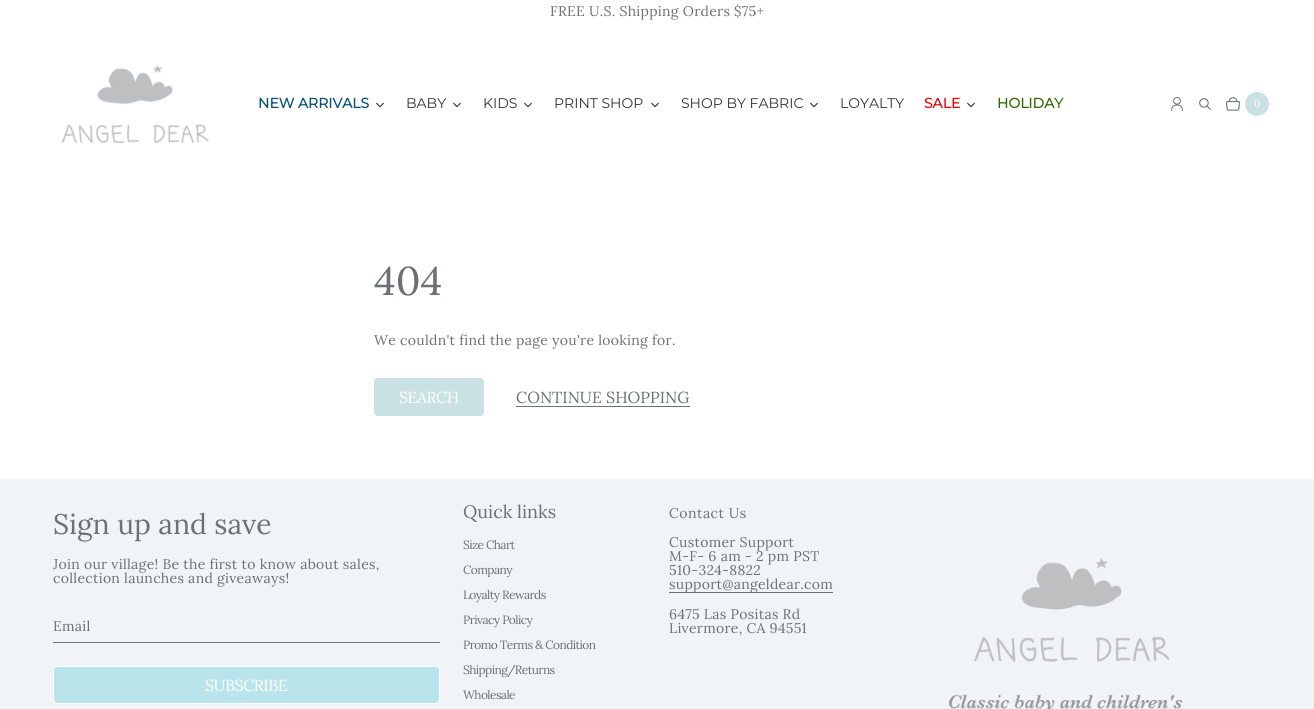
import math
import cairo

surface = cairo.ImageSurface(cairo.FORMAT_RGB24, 1314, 709)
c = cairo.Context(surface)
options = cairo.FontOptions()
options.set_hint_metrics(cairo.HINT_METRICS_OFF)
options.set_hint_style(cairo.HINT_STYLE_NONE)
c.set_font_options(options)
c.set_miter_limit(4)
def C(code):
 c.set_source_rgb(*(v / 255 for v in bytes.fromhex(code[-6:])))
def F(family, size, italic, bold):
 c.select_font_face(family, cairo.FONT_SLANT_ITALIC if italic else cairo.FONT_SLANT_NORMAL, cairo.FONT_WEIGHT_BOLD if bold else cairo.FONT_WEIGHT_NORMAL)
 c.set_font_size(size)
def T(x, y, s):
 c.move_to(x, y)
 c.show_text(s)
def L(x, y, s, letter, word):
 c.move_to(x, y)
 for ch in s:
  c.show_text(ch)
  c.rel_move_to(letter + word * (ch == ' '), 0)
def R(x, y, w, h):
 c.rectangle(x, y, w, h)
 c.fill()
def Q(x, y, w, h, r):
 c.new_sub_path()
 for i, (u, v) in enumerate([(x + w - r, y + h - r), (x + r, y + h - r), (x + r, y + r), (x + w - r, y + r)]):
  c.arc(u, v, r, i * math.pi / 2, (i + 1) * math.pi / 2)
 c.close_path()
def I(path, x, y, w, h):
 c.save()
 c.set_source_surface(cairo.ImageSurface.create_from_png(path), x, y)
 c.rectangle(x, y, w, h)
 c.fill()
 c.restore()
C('ffffff')
c.paint()
F('Lora',14,0,0)
C('6d7171')
L(550,16,'FREE U.S. Shipping Orders $75+',.28,0)
I('1.png',61,65,148,79)
F('Montserrat',14,0,1)
C('075076')
T(258,108,'NEW ARRIVALS')
I('2.png',376,102,8,6)
F('Montserrat Thin',14,0,0)
C('333333')
T(406,108,'BABY')
I('2.png',453,102,8,6)
T(483,108,'KIDS')
I('2.png',524,102,8,6)
T(554,108,'PRINT SHOP')
I('2.png',651,102,8,6)
T(681,108,'SHOP BY FABRIC')
I('2.png',810,102,8,6)
T(840,108,'LOYALTY')
F('Montserrat',14,0,1)
C('de0909')
T(924,108,'SALE')
I('2.png',967,102,8,6)
C('306b04')
T(997,108,'HOLIDAY')
I('3.png',1171,97,12,14)
I('4.png',1199,98,12,12)
I('5.png',1226,97,14,14)
C('cae1e3')
c.arc(1257,104,12,0,2 * math.pi)
c.fill()
F('Lora',10,0,0)
C('ffffff')
T(1254,107,'0')
F('Lora',40,0,0)
C('6d7171')
T(374,295,'404')
F('Lora',14,0,0)
L(374,345,'We couldn\'t find the page you\'re looking for.',.28,0)
C('cae1e3')
Q(374,378,110,38,4)
c.fill()
F('Lora',16,0,0)
C('ffffff')
L(399,403,'SEARCH',-.5,0)
C('6d7171')
T(516,403,'CONTINUE SHOPPING')
R(516,406,174,1)
C('f0f4f6')
R(0,479,1314,230)
F('Lora',28.25,0,0)
C('6d7171')
T(53,534,'Sign up and save')
F('Lora',14,0,0)
L(53,569,'Join our village! Be the first to know about sales,',.28,0)
L(53,583,'collection launches and giveaways!',.28,0)
L(53,631,'Email',.28,0)
R(53,642,387,1)
C('b9e4eb')
Q(53.5,666.5,386,37,3.5)
c.fill_preserve()
C('ffffff')
c.set_line_width(1)
c.stroke()
F('Lora',16,0,0)
L(205,691,'SUBSCRIBE',-.5,0)
F('Lora',18,0,0)
C('6d7171')
T(463,518,'Quick links')
F('Lora',12,0,0)
L(463,549,'Size Chart',-.6,0)
L(463,574,'Company',-.6,0)
L(463,599,'Loyalty Rewards',-.6,0)
L(463,624,'Privacy Policy',-.6,0)
L(463,649,'Promo Terms & Condition',-.6,0)
L(463,674,'Shipping/Returns',-.6,0)
L(463,699,'Wholesale',-.6,0)
F('Lora',14,0,0)
L(669,518,'Contact Us',.5,0)
L(669,547,'Customer Support',.28,0)
L(669,561,'M-F- 6 am - 2 pm PST',.28,0)
L(669,575,'510-324-8822',.28,0)
R(669,592,164,1)
L(669,589,'support@angeldear.com',.28,0)
L(669,619,'6475 Las Positas Rd',.28,0)
L(669,633,'Livermore, CA 94551',.28,0)
I('6.png',949,558,233,151)
surface.write_to_png('o.png')
